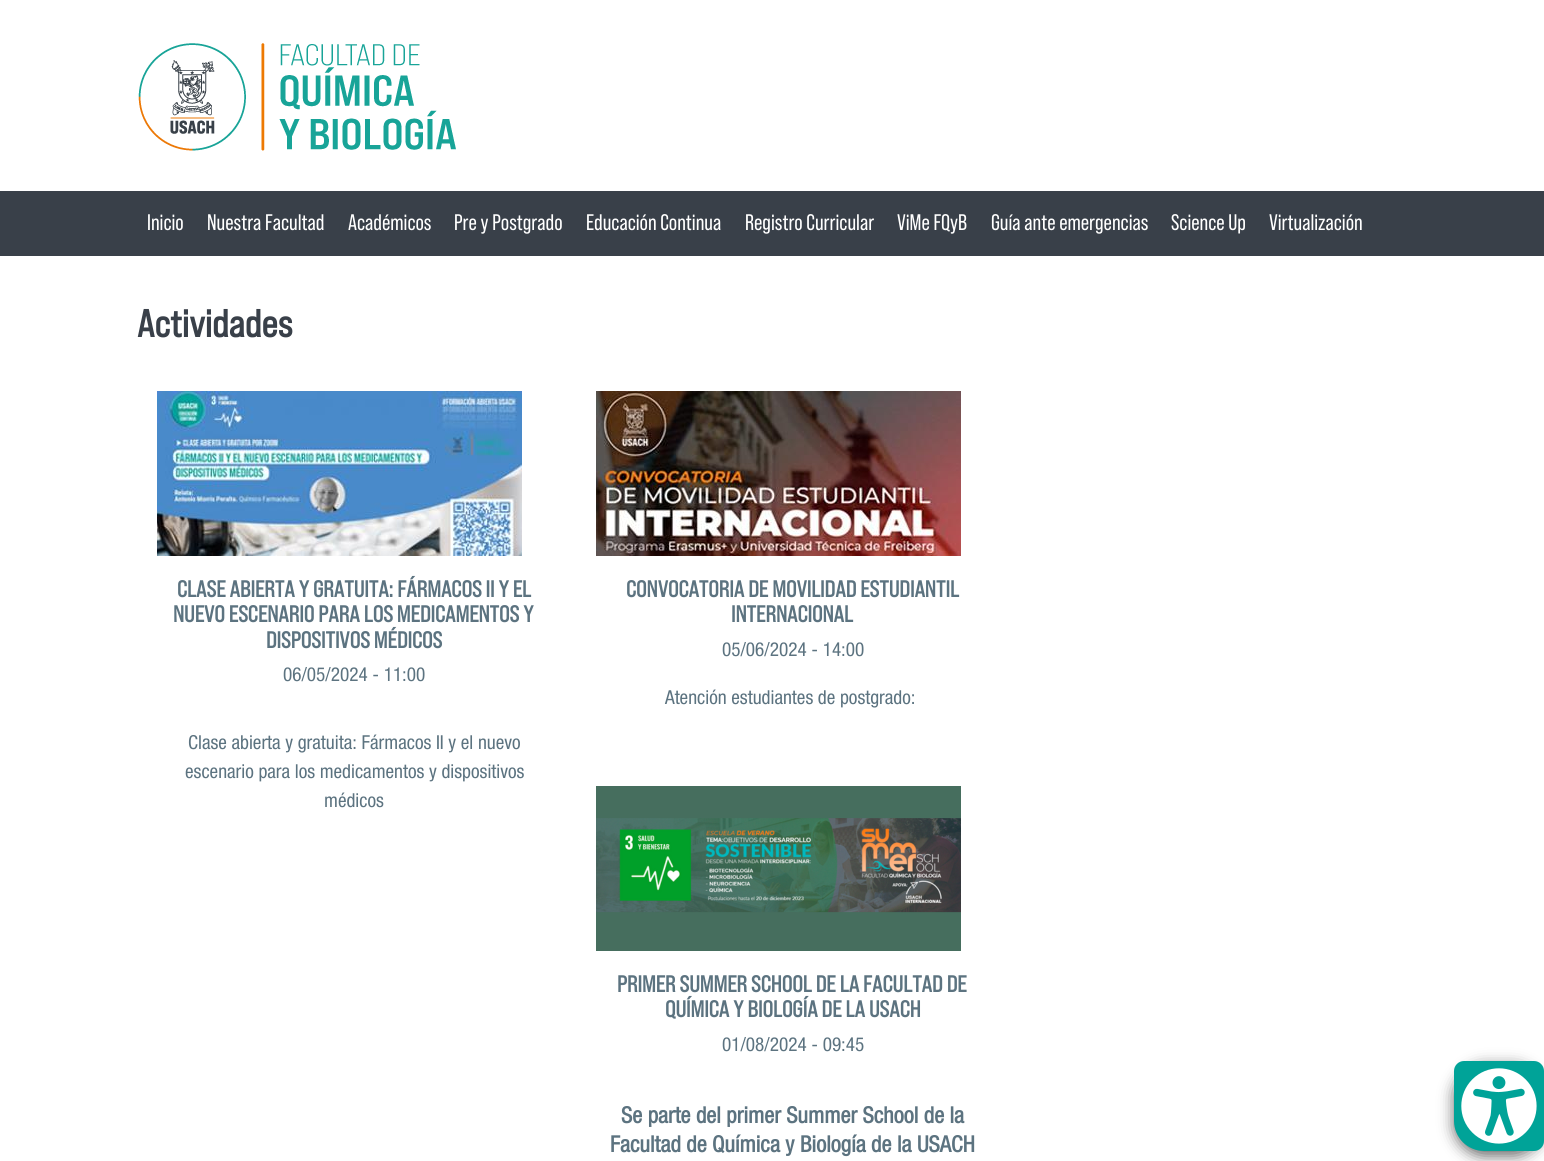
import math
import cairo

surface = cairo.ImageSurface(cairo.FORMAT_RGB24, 1544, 1161)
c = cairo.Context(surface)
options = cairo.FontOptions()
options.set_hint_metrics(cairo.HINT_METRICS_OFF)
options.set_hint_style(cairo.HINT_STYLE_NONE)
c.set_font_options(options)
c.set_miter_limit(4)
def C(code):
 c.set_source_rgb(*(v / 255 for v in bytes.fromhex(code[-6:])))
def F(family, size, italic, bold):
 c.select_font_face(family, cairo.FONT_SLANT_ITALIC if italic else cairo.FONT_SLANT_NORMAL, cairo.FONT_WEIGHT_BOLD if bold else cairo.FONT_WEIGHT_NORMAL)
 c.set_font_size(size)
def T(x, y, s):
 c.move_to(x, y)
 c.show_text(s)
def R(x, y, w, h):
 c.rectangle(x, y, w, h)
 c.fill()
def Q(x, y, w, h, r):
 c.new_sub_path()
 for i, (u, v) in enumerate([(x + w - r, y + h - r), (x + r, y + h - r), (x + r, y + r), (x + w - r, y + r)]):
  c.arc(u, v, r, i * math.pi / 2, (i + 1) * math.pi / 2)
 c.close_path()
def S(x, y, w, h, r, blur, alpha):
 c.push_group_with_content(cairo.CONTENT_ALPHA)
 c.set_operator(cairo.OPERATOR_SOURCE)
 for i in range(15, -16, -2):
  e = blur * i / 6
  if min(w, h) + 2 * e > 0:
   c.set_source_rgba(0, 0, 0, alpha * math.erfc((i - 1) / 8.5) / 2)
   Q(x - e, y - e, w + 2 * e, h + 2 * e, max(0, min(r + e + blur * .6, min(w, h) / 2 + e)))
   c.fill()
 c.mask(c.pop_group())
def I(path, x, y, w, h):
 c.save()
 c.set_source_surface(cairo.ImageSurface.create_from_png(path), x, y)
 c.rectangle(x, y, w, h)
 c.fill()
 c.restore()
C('ffffff')
c.paint()
I('1.png',138,43,318,108)
C('394049')
R(0,191,1544,65)
F('Bebas Neue',22.5,0,0)
C('ffffff')
T(147,230,'Inicio')
T(207,230,'Nuestra Facultad')
T(348,230,'Académicos')
T(454,230,'Pre y Postgrado')
T(586,230,'Educación Continua')
T(745,230,'Registro Curricular')
T(897,230,'ViMe FQyB')
T(991,230,'Guía ante emergencias')
T(1171,230,'Science Up')
T(1269,230,'Virtualización')
F('Bebas Neue',38.5,0,1)
C('394049')
T(137,337,'Actividades')
I('2.png',157,391,365,165)
F('Bebas Neue',23,0,1)
C('5c7380')
T(177,597,'CLASE ABIERTA Y GRATUITA: FÁRMACOS II Y EL')
T(173,622,'NUEVO ESCENARIO PARA LOS MEDICAMENTOS Y')
T(266,648,'DISPOSITIVOS MÉDICOS')
F('Helvetica Neue',19.25,0,0)
T(283,681,'06/05/2024 - 11:00')
T(188,749,'Clase abierta y gratuita: Fármacos II y el nuevo')
T(185,778,'escenario para los medicamentos y dispositivos')
T(324,807,'médicos')
I('3.png',596,391,365,165)
F('Bebas Neue',23,0,1)
T(626,597,'CONVOCATORIA DE MOVILIDAD ESTUDIANTIL')
T(731,622,'INTERNACIONAL')
F('Helvetica Neue',19.25,0,0)
T(722,656,'05/06/2024 - 14:00')
T(665,704,'Atención estudiantes de postgrado:')
I('4.png',596,786,365,165)
F('Bebas Neue',23,0,1)
T(617,992,'PRIMER SUMMER SCHOOL DE LA FACULTAD DE')
T(665,1017,'QUÍMICA Y BIOLOGÍA DE LA USACH')
F('Helvetica Neue',19.25,0,0)
T(722,1051,'01/08/2024 - 09:45')
F('Helvetica Neue',22.5,0,1)
T(621,1123,'Se parte del primer Summer School de la')
T(610,1152,'Facultad de Química y Biología de la USACH')
C('000000')
S(1454,1066,90,90,30,7.5,.6)
C('00a398')
c.new_path()
c.move_to(1464,1061)
c.line_to(1534,1061)
c.curve_to(1539.5,1061,1544,1065.5,1544,1071)
c.line_to(1544,1141)
c.curve_to(1544,1146.5,1539.5,1151,1534,1151)
c.line_to(1484,1151)
c.curve_to(1467.5,1151,1454,1137.5,1454,1121)
c.line_to(1454,1071)
c.curve_to(1454,1065.5,1458.5,1061,1464,1061)
c.close_path()
c.fill()
I('5.png',1461,1068,76,76)
surface.write_to_png('o.png')
